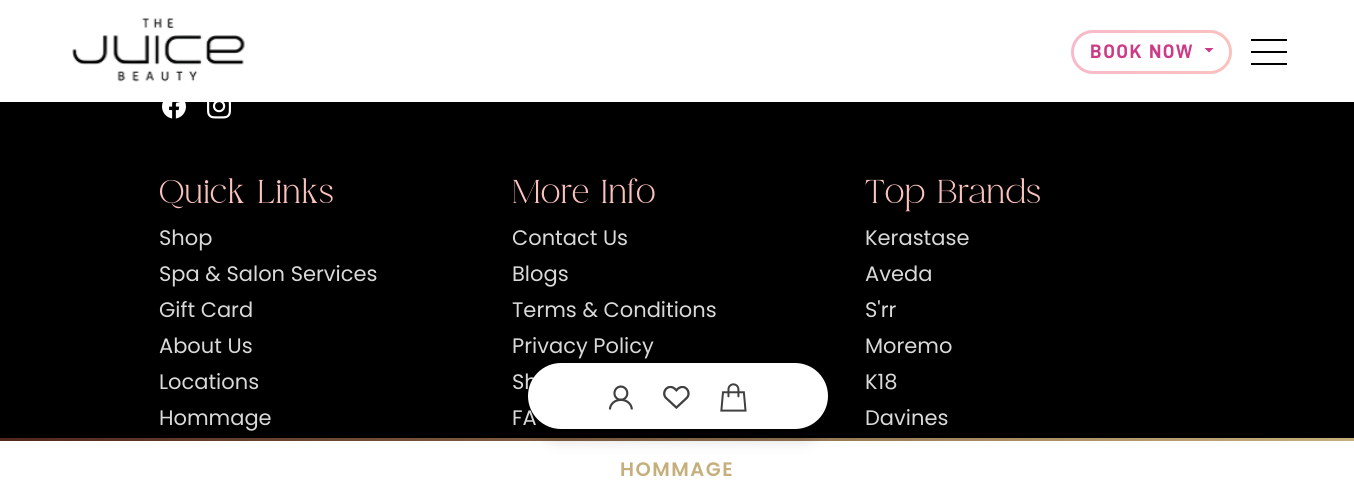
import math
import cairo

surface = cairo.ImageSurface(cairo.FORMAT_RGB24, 1354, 496)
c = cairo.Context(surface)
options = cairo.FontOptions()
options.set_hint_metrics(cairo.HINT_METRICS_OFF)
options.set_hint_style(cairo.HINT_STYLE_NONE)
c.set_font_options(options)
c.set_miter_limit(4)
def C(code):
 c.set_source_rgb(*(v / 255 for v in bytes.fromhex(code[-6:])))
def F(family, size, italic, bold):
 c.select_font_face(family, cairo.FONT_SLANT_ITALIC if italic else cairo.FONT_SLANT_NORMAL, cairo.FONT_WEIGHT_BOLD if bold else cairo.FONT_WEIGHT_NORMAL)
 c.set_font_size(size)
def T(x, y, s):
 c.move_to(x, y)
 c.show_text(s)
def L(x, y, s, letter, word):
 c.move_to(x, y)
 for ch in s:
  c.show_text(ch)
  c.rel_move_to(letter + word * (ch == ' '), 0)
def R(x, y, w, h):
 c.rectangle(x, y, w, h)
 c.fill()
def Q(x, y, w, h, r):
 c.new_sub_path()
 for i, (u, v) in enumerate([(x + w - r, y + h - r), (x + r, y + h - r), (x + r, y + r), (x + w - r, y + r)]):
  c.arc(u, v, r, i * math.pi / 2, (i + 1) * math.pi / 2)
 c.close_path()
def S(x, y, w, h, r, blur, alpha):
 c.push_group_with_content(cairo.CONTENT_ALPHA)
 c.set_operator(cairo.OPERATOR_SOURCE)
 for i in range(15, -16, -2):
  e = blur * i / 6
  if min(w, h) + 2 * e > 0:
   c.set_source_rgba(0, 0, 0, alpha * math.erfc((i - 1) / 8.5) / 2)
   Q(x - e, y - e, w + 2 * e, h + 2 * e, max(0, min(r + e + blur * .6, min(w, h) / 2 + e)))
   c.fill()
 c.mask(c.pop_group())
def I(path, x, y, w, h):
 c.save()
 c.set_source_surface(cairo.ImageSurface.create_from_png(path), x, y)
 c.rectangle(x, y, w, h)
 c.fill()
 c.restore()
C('000000')
c.paint()
C('ffffff')
R(0,0,1354,102)
I('1.png',72,18,173,64)
gradient = cairo.LinearGradient(1232,52,1071,52)
gradient.add_color_stop_rgba(0,0.984,0.757,0.741,1)
gradient.add_color_stop_rgba(1,0.973,0.729,0.788,1)
c.set_source(gradient)
Q(1071,30,161,44,22)
c.fill()
C('ffffff')
Q(1074,33,155,38,19)
c.fill()
F('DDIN',19.5,0,1)
C('cd3b87')
L(1090,58,'BOOK NOW',1.5,0)
c.new_path()
c.move_to(1204.5,48)
c.line_to(1213.5,48)
c.line_to(1209,52.5)
c.close_path()
c.fill()
C('000000')
R(1251,63,36,2)
R(1251,39,36,2)
R(1251,51,36,2)
C('ffffff')
R(0,441,1354,55)
gradient = cairo.LinearGradient(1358,469,-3,469)
gradient.add_color_stop_rgba(0,0.773,0.686,0.49,1)
gradient.add_color_stop_rgba(1,0.314,0.149,0.106,1)
c.set_source(gradient)
R(0,438,1354,3)
C('000000')
S(533,378,294,60,30,8,.2)
F('Poppins',21,0,0)
C('d9d9d9')
T(512,389,'Sh')
T(512,425,'FA')
C('ffffff')
Q(528,363,300,66,33)
c.fill()
I('2.png',608,385,25,25)
I('3.png',663,386,27,23)
I('4.png',720,383,27,29)
F('Poppins SemiBold',19.5,0,0)
C('c5af7d')
L(620,476,'HOMMAGE',1.5,0)
I('5.png',162,102,24,17)
I('6.png',207,102,24,17)
F('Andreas',33,0,0)
C('fbc1bd')
T(159,203,'Quick Links')
F('Poppins',21,0,0)
C('d9d9d9')
T(159,245,'Shop')
T(159,281,'Spa & Salon Services')
T(159,317,'Gift Card')
T(159,353,'About Us')
T(159,389,'Locations')
T(159,425,'Hommage')
F('Andreas',33,0,0)
C('fbc1bd')
T(512,203,'More Info')
F('Poppins',21,0,0)
C('d9d9d9')
T(512,245,'Contact Us')
T(512,281,'Blogs')
T(512,317,'Terms & Conditions')
T(512,353,'Privacy Policy')
F('Andreas',33,0,0)
C('fbc1bd')
T(865,203,'Top Brands')
F('Poppins',21,0,0)
C('d9d9d9')
T(865,245,'Kerastase')
T(865,281,'Aveda')
T(865,317,'S\'rr')
T(865,353,'Moremo')
T(865,389,'K18')
T(865,425,'Davines')
surface.write_to_png('o.png')
